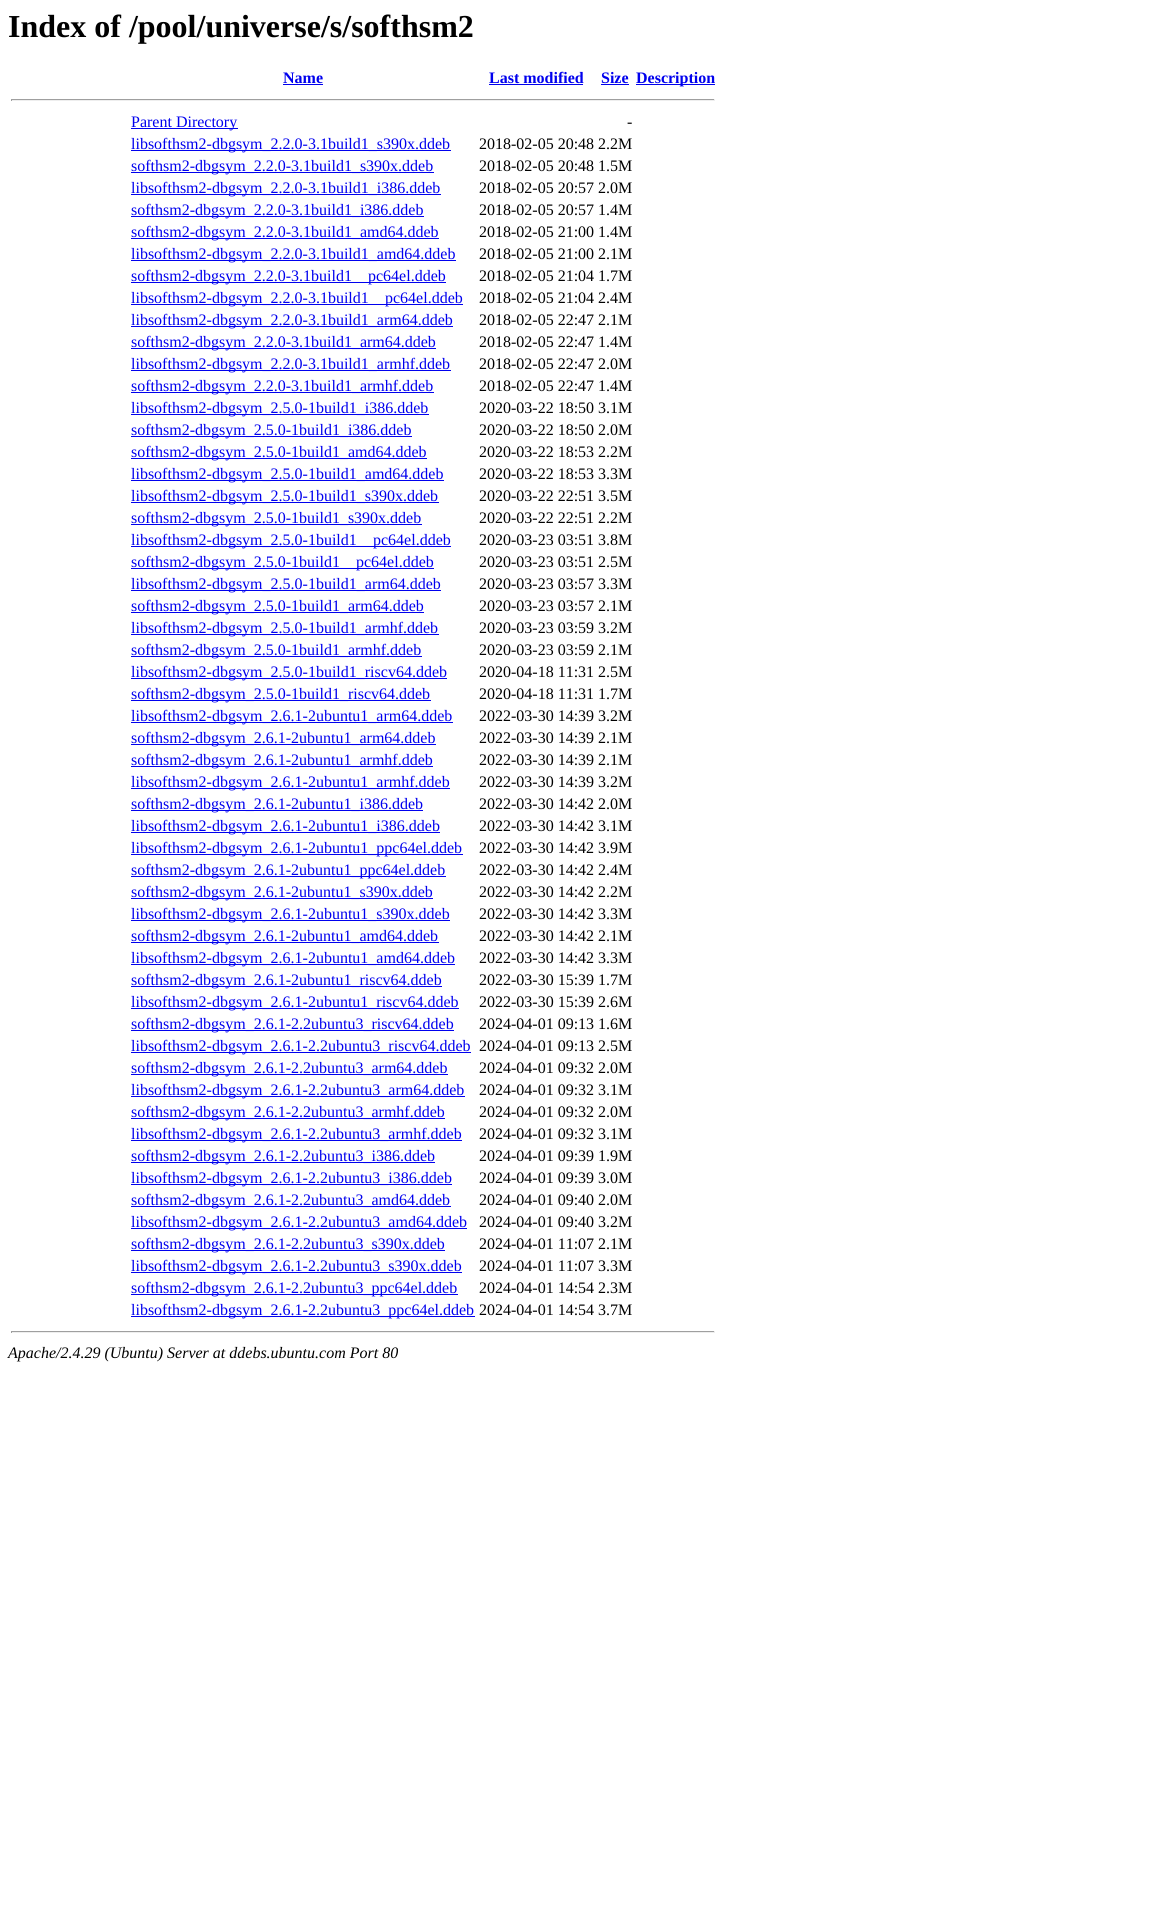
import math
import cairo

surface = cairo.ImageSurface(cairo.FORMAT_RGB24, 1165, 1927)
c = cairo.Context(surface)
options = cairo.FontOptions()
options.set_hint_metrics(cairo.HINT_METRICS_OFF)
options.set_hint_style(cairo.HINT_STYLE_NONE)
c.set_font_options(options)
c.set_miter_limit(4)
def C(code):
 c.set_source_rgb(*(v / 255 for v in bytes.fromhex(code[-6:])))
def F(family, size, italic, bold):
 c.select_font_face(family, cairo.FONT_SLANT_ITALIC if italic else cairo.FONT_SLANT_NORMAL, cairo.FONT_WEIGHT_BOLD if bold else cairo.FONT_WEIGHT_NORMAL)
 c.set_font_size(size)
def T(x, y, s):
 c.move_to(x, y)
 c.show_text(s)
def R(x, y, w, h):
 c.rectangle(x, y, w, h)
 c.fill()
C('ffffff')
c.paint()
F('Liberation Serif',32,0,1)
C('000000')
T(8,37,'Index of /pool/universe/s/softhsm2')
F('Liberation Serif',16,0,1)
C('0000ee')
T(283,83,'Name')
R(283,84,40,1)
T(489,83,'Last modified')
R(489,84,94,1)
T(601,83,'Size')
R(601,84,28,1)
R(636,84,79,1)
T(636,83,'Description')
C('9f9f9f')
R(11,99,704,1)
C('eeeeee')
R(714,99,1,2)
R(11,100,704,1)
C('9f9f9f')
R(11,99,1,2)
C('0000ee')
R(131,128,107,1)
F('Liberation Serif',16,0,0)
T(131,127,'Parent Directory')
C('000000')
T(627,127,'-')
C('0000ee')
R(131,150,320,1)
T(131,149,'libsofthsm2-dbgsym_2.2.0-3.1build1_s390x.ddeb')
C('000000')
T(479,149,'2018-02-05 20:48 2.2M')
C('0000ee')
R(131,172,303,1)
T(131,171,'softhsm2-dbgsym_2.2.0-3.1build1_s390x.ddeb')
C('000000')
T(479,171,'2018-02-05 20:48 1.5M')
C('0000ee')
R(131,194,310,1)
T(131,193,'libsofthsm2-dbgsym_2.2.0-3.1build1_i386.ddeb')
C('000000')
T(479,193,'2018-02-05 20:57 2.0M')
C('0000ee')
R(131,216,293,1)
T(131,215,'softhsm2-dbgsym_2.2.0-3.1build1_i386.ddeb')
C('000000')
T(479,215,'2018-02-05 20:57 1.4M')
C('0000ee')
R(131,238,308,1)
T(131,237,'softhsm2-dbgsym_2.2.0-3.1build1_amd64.ddeb')
C('000000')
T(479,237,'2018-02-05 21:00 1.4M')
C('0000ee')
R(131,260,325,1)
T(131,259,'libsofthsm2-dbgsym_2.2.0-3.1build1_amd64.ddeb')
C('000000')
T(479,259,'2018-02-05 21:00 2.1M')
C('0000ee')
R(131,282,315,1)
T(131,281,'softhsm2-dbgsym_2.2.0-3.1build1')
T(368,281,'pc64el.ddeb')
C('000000')
T(479,281,'2018-02-05 21:04 1.7M')
C('0000ee')
R(131,304,332,1)
T(131,303,'libsofthsm2-dbgsym_2.2.0-3.1build1')
T(385,303,'pc64el.ddeb')
C('000000')
T(479,303,'2018-02-05 21:04 2.4M')
C('0000ee')
R(131,326,322,1)
T(131,325,'libsofthsm2-dbgsym_2.2.0-3.1build1_arm64.ddeb')
C('000000')
T(479,325,'2018-02-05 22:47 2.1M')
C('0000ee')
R(131,348,305,1)
T(131,347,'softhsm2-dbgsym_2.2.0-3.1build1_arm64.ddeb')
C('000000')
T(479,347,'2018-02-05 22:47 1.4M')
C('0000ee')
R(131,370,320,1)
T(131,369,'libsofthsm2-dbgsym_2.2.0-3.1build1_armhf.ddeb')
C('000000')
T(479,369,'2018-02-05 22:47 2.0M')
C('0000ee')
R(131,392,303,1)
T(131,391,'softhsm2-dbgsym_2.2.0-3.1build1_armhf.ddeb')
C('000000')
T(479,391,'2018-02-05 22:47 1.4M')
C('0000ee')
R(131,414,298,1)
T(131,413,'libsofthsm2-dbgsym_2.5.0-1build1_i386.ddeb')
C('000000')
T(479,413,'2020-03-22 18:50 3.1M')
C('0000ee')
R(131,436,281,1)
T(131,435,'softhsm2-dbgsym_2.5.0-1build1_i386.ddeb')
C('000000')
T(479,435,'2020-03-22 18:50 2.0M')
C('0000ee')
R(131,458,296,1)
T(131,457,'softhsm2-dbgsym_2.5.0-1build1_amd64.ddeb')
C('000000')
T(479,457,'2020-03-22 18:53 2.2M')
C('0000ee')
R(131,480,313,1)
T(131,479,'libsofthsm2-dbgsym_2.5.0-1build1_amd64.ddeb')
C('000000')
T(479,479,'2020-03-22 18:53 3.3M')
C('0000ee')
R(131,502,308,1)
T(131,501,'libsofthsm2-dbgsym_2.5.0-1build1_s390x.ddeb')
C('000000')
T(479,501,'2020-03-22 22:51 3.5M')
C('0000ee')
R(131,524,291,1)
T(131,523,'softhsm2-dbgsym_2.5.0-1build1_s390x.ddeb')
C('000000')
T(479,523,'2020-03-22 22:51 2.2M')
C('0000ee')
R(131,546,320,1)
T(131,545,'libsofthsm2-dbgsym_2.5.0-1build1')
T(373,545,'pc64el.ddeb')
C('000000')
T(479,545,'2020-03-23 03:51 3.8M')
C('0000ee')
R(131,568,303,1)
T(131,567,'softhsm2-dbgsym_2.5.0-1build1')
T(356,567,'pc64el.ddeb')
C('000000')
T(479,567,'2020-03-23 03:51 2.5M')
C('0000ee')
R(131,590,310,1)
T(131,589,'libsofthsm2-dbgsym_2.5.0-1build1_arm64.ddeb')
C('000000')
T(479,589,'2020-03-23 03:57 3.3M')
C('0000ee')
R(131,612,293,1)
T(131,611,'softhsm2-dbgsym_2.5.0-1build1_arm64.ddeb')
C('000000')
T(479,611,'2020-03-23 03:57 2.1M')
C('0000ee')
R(131,634,308,1)
T(131,633,'libsofthsm2-dbgsym_2.5.0-1build1_armhf.ddeb')
C('000000')
T(479,633,'2020-03-23 03:59 3.2M')
C('0000ee')
R(131,656,291,1)
T(131,655,'softhsm2-dbgsym_2.5.0-1build1_armhf.ddeb')
C('000000')
T(479,655,'2020-03-23 03:59 2.1M')
C('0000ee')
R(131,678,316,1)
T(131,677,'libsofthsm2-dbgsym_2.5.0-1build1_riscv64.ddeb')
C('000000')
T(479,677,'2020-04-18 11:31 2.5M')
C('0000ee')
R(131,700,300,1)
T(131,699,'softhsm2-dbgsym_2.5.0-1build1_riscv64.ddeb')
C('000000')
T(479,699,'2020-04-18 11:31 1.7M')
C('0000ee')
R(131,722,322,1)
T(131,721,'libsofthsm2-dbgsym_2.6.1-2ubuntu1_arm64.ddeb')
C('000000')
T(479,721,'2022-03-30 14:39 3.2M')
C('0000ee')
R(131,744,305,1)
T(131,743,'softhsm2-dbgsym_2.6.1-2ubuntu1_arm64.ddeb')
C('000000')
T(479,743,'2022-03-30 14:39 2.1M')
C('0000ee')
R(131,766,302,1)
T(131,765,'softhsm2-dbgsym_2.6.1-2ubuntu1_armhf.ddeb')
C('000000')
T(479,765,'2022-03-30 14:39 2.1M')
C('0000ee')
R(131,788,319,1)
T(131,787,'libsofthsm2-dbgsym_2.6.1-2ubuntu1_armhf.ddeb')
C('000000')
T(479,787,'2022-03-30 14:39 3.2M')
C('0000ee')
R(131,810,292,1)
T(131,809,'softhsm2-dbgsym_2.6.1-2ubuntu1_i386.ddeb')
C('000000')
T(479,809,'2022-03-30 14:42 2.0M')
C('0000ee')
R(131,832,309,1)
T(131,831,'libsofthsm2-dbgsym_2.6.1-2ubuntu1_i386.ddeb')
C('000000')
T(479,831,'2022-03-30 14:42 3.1M')
C('0000ee')
R(131,854,332,1)
T(131,853,'libsofthsm2-dbgsym_2.6.1-2ubuntu1_ppc64el.ddeb')
C('000000')
T(479,853,'2022-03-30 14:42 3.9M')
C('0000ee')
R(131,876,315,1)
T(131,875,'softhsm2-dbgsym_2.6.1-2ubuntu1_ppc64el.ddeb')
C('000000')
T(479,875,'2022-03-30 14:42 2.4M')
C('0000ee')
R(131,898,302,1)
T(131,897,'softhsm2-dbgsym_2.6.1-2ubuntu1_s390x.ddeb')
C('000000')
T(479,897,'2022-03-30 14:42 2.2M')
C('0000ee')
R(131,920,319,1)
T(131,919,'libsofthsm2-dbgsym_2.6.1-2ubuntu1_s390x.ddeb')
C('000000')
T(479,919,'2022-03-30 14:42 3.3M')
C('0000ee')
R(131,942,308,1)
T(131,941,'softhsm2-dbgsym_2.6.1-2ubuntu1_amd64.ddeb')
C('000000')
T(479,941,'2022-03-30 14:42 2.1M')
C('0000ee')
R(131,964,324,1)
T(131,963,'libsofthsm2-dbgsym_2.6.1-2ubuntu1_amd64.ddeb')
C('000000')
T(479,963,'2022-03-30 14:42 3.3M')
C('0000ee')
R(131,986,311,1)
T(131,985,'softhsm2-dbgsym_2.6.1-2ubuntu1_riscv64.ddeb')
C('000000')
T(479,985,'2022-03-30 15:39 1.7M')
C('0000ee')
R(131,1008,328,1)
T(131,1007,'libsofthsm2-dbgsym_2.6.1-2ubuntu1_riscv64.ddeb')
C('000000')
T(479,1007,'2022-03-30 15:39 2.6M')
C('0000ee')
R(131,1030,323,1)
T(131,1029,'softhsm2-dbgsym_2.6.1-2.2ubuntu3_riscv64.ddeb')
C('000000')
T(479,1029,'2024-04-01 09:13 1.6M')
C('0000ee')
R(131,1052,340,1)
T(131,1051,'libsofthsm2-dbgsym_2.6.1-2.2ubuntu3_riscv64.ddeb')
C('000000')
T(479,1051,'2024-04-01 09:13 2.5M')
C('0000ee')
R(131,1074,317,1)
T(131,1073,'softhsm2-dbgsym_2.6.1-2.2ubuntu3_arm64.ddeb')
C('000000')
T(479,1073,'2024-04-01 09:32 2.0M')
C('0000ee')
R(131,1096,334,1)
T(131,1095,'libsofthsm2-dbgsym_2.6.1-2.2ubuntu3_arm64.ddeb')
C('000000')
T(479,1095,'2024-04-01 09:32 3.1M')
C('0000ee')
R(131,1118,314,1)
T(131,1117,'softhsm2-dbgsym_2.6.1-2.2ubuntu3_armhf.ddeb')
C('000000')
T(479,1117,'2024-04-01 09:32 2.0M')
C('0000ee')
R(131,1140,331,1)
T(131,1139,'libsofthsm2-dbgsym_2.6.1-2.2ubuntu3_armhf.ddeb')
C('000000')
T(479,1139,'2024-04-01 09:32 3.1M')
C('0000ee')
R(131,1162,304,1)
T(131,1161,'softhsm2-dbgsym_2.6.1-2.2ubuntu3_i386.ddeb')
C('000000')
T(479,1161,'2024-04-01 09:39 1.9M')
C('0000ee')
R(131,1184,321,1)
T(131,1183,'libsofthsm2-dbgsym_2.6.1-2.2ubuntu3_i386.ddeb')
C('000000')
T(479,1183,'2024-04-01 09:39 3.0M')
C('0000ee')
R(131,1206,320,1)
T(131,1205,'softhsm2-dbgsym_2.6.1-2.2ubuntu3_amd64.ddeb')
C('000000')
T(479,1205,'2024-04-01 09:40 2.0M')
C('0000ee')
R(131,1228,336,1)
T(131,1227,'libsofthsm2-dbgsym_2.6.1-2.2ubuntu3_amd64.ddeb')
C('000000')
T(479,1227,'2024-04-01 09:40 3.2M')
C('0000ee')
R(131,1250,314,1)
T(131,1249,'softhsm2-dbgsym_2.6.1-2.2ubuntu3_s390x.ddeb')
C('000000')
T(479,1249,'2024-04-01 11:07 2.1M')
C('0000ee')
R(131,1272,331,1)
T(131,1271,'libsofthsm2-dbgsym_2.6.1-2.2ubuntu3_s390x.ddeb')
C('000000')
T(479,1271,'2024-04-01 11:07 3.3M')
C('0000ee')
R(131,1294,327,1)
T(131,1293,'softhsm2-dbgsym_2.6.1-2.2ubuntu3_ppc64el.ddeb')
C('000000')
T(479,1293,'2024-04-01 14:54 2.3M')
C('0000ee')
R(131,1316,344,1)
T(131,1315,'libsofthsm2-dbgsym_2.6.1-2.2ubuntu3_ppc64el.ddeb')
C('000000')
T(479,1315,'2024-04-01 14:54 3.7M')
C('9f9f9f')
R(11,1331,704,1)
C('eeeeee')
R(714,1331,1,2)
R(11,1332,704,1)
C('9f9f9f')
R(11,1331,1,2)
F('Liberation Serif',16,1,0)
C('000000')
T(8,1358,'Apache/2.4.29 (Ubuntu) Server at ddebs.ubuntu.com Port 80')
surface.write_to_png('o.png')
